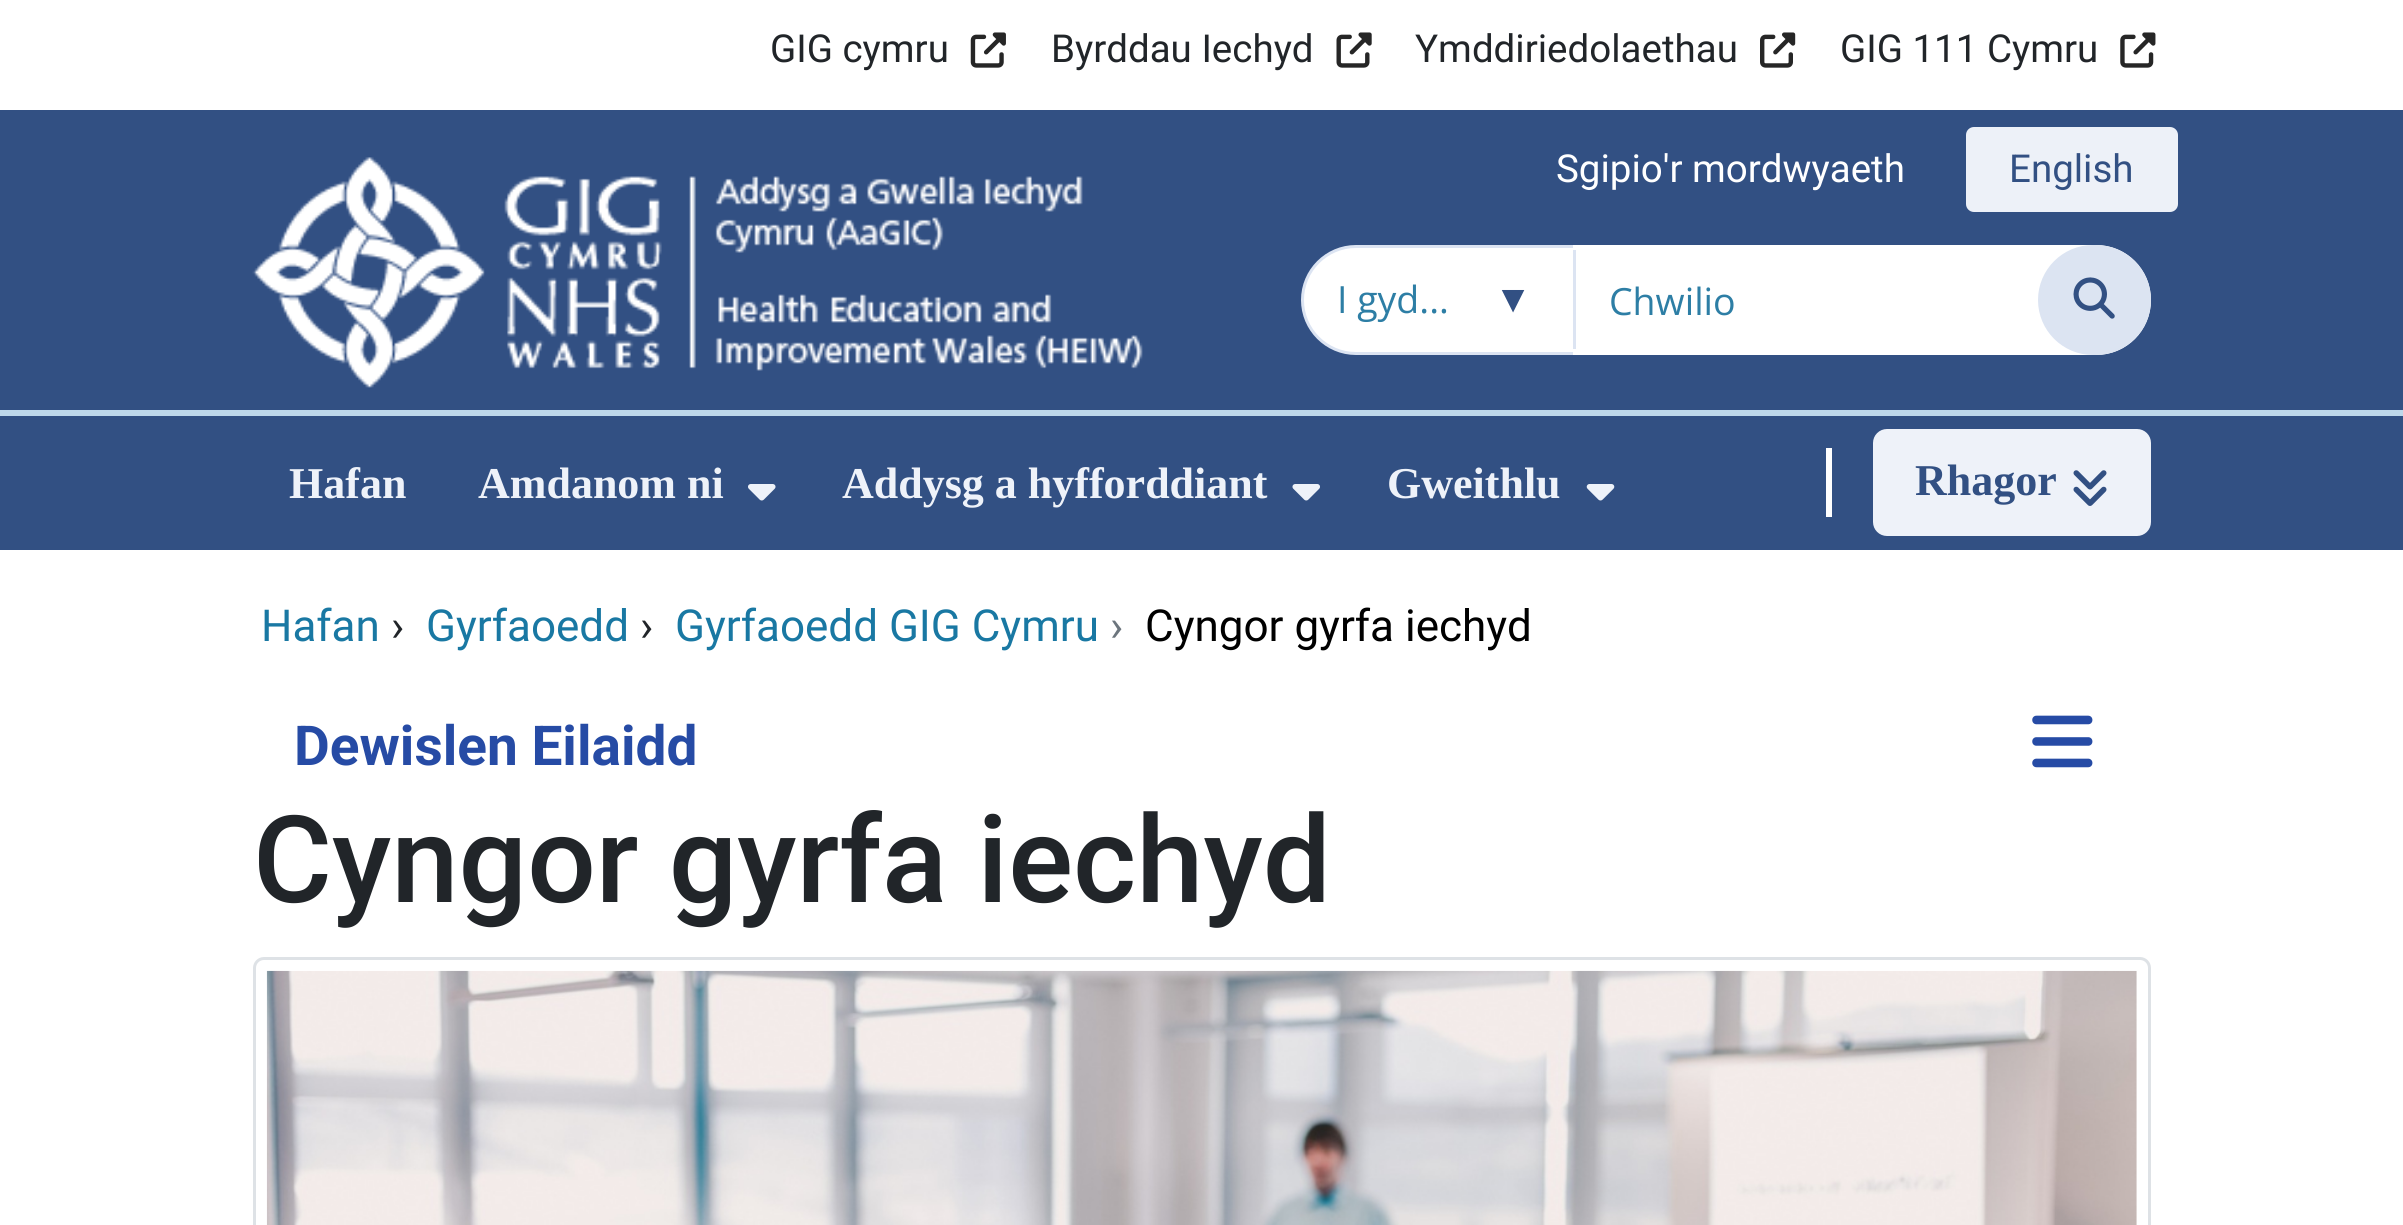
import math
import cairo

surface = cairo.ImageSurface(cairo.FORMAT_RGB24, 2403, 1225)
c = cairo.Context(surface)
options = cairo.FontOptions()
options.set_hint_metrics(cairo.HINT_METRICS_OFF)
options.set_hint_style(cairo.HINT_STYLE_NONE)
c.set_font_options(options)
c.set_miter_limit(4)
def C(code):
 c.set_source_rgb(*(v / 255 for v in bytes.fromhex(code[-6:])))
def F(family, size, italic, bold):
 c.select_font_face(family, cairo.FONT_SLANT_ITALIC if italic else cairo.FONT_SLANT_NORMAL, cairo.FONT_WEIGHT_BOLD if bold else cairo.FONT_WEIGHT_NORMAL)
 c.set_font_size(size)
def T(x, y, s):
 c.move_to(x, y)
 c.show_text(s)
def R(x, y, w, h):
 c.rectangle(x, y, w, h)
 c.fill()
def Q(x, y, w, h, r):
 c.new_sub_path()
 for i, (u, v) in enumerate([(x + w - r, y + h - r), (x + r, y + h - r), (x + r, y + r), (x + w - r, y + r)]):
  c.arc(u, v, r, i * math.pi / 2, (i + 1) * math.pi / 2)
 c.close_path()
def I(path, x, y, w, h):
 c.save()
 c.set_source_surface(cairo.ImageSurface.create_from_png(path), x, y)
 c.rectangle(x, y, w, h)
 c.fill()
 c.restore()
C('ffffff')
c.paint()
C('325083')
R(0,110,2403,300)
C('bdd7ea')
R(0,410,2403,6)
F('Roboto',38.5,0,0)
C('212529')
T(770,62,'GIG cymru')
I('1.png',970,32,36,36)
T(1051,62,'Byrddau Iechyd')
I('2.png',1336,32,36,36)
T(1415,62,'Ymddiriedolaethau')
I('3.png',1760,32,36,36)
T(1840,62,'GIG 111 Cymru')
I('4.png',2120,32,36,36)
C('ffffff')
T(1556,182,'Sgipio\'r mordwyaeth')
C('edf1f8')
Q(1966,127,212,85,8)
c.fill()
C('325083')
T(2009,182,'English')
I('5.png',252,157,891,231)
C('ffffff')
c.new_path()
c.move_to(1356,246.5)
c.line_to(1574.5,246.5)
c.line_to(1574.5,353.5)
c.line_to(1356,353.5)
c.curve_to(1326.5,353.5,1302.5,329.5,1302.5,300)
c.curve_to(1302.5,270.5,1326.5,246.5,1356,246.5)
c.close_path()
c.fill_preserve()
C('dce4f2')
c.set_line_width(3)
c.stroke()
F('Open Sans',37.5,0,0)
C('2d7ea5')
T(1337,313,'I gyd...')
F('Liberation Sans',38.5,0,0)
C('325083')
T(1494,312,'▼')
C('ffffff')
c.new_path()
c.move_to(1573,245)
c.line_to(2096,245)
c.curve_to(2126.5,245,2151,269.5,2151,300)
c.curve_to(2151,330.5,2126.5,355,2096,355)
c.line_to(1573,355)
c.close_path()
c.fill()
C('dce4f2')
R(1573,250,3,99)
F('Open Sans',37.5,0,0)
C('2d7ea5')
T(1609,315,'Chwilio')
C('dce4f2')
Q(2039.5,246.5,110,107,53.5)
c.fill_preserve()
c.stroke()
I('6.png',2073,277,42,42)
C('325083')
R(0,416,2403,134)
F('Liberation Serif',44,0,1)
C('eef2f9')
T(289,498,'Hafan')
T(478,498,'Amdanom ni')
I('7.png',748,484,28,17)
T(842,498,'Addysg a hyfforddiant')
I('8.png',1292,484,28,17)
T(1387,498,'Gweithlu')
I('9.png',1586,484,29,17)
C('ffffff')
R(1826,448,6,69)
C('eef2f9')
Q(1873,429,278,107,14)
c.fill()
C('325083')
T(1915,495,'Rhagor')
I('10.png',2073,470,34,36)
F('Roboto',44,0,0)
C('1978a3')
T(261,641,'Hafan')
C('212529')
T(391,641,'›')
C('1978a3')
T(426,641,'Gyrfaoedd')
C('212529')
T(640,641,'›')
C('1978a3')
T(675,641,'Gyrfaoedd GIG Cymru')
C('6c757d')
T(1110,641,'›')
C('000000')
T(1145,641,'Cyngor gyrfa iechyd')
F('Roboto',55,0,1)
C('264ba5')
T(294,765,'Dewislen Eilaidd')
I('11.png',2032,715,61,53)
F('Roboto Medium',121,0,0)
C('212529')
T(253,902,'Cyngor gyrfa iechyd')
Q(254.5,958.5,1895,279,9.5)
C('dee2e6')
c.stroke()
I('12.png',266,970,1871,255)
surface.write_to_png('o.png')
